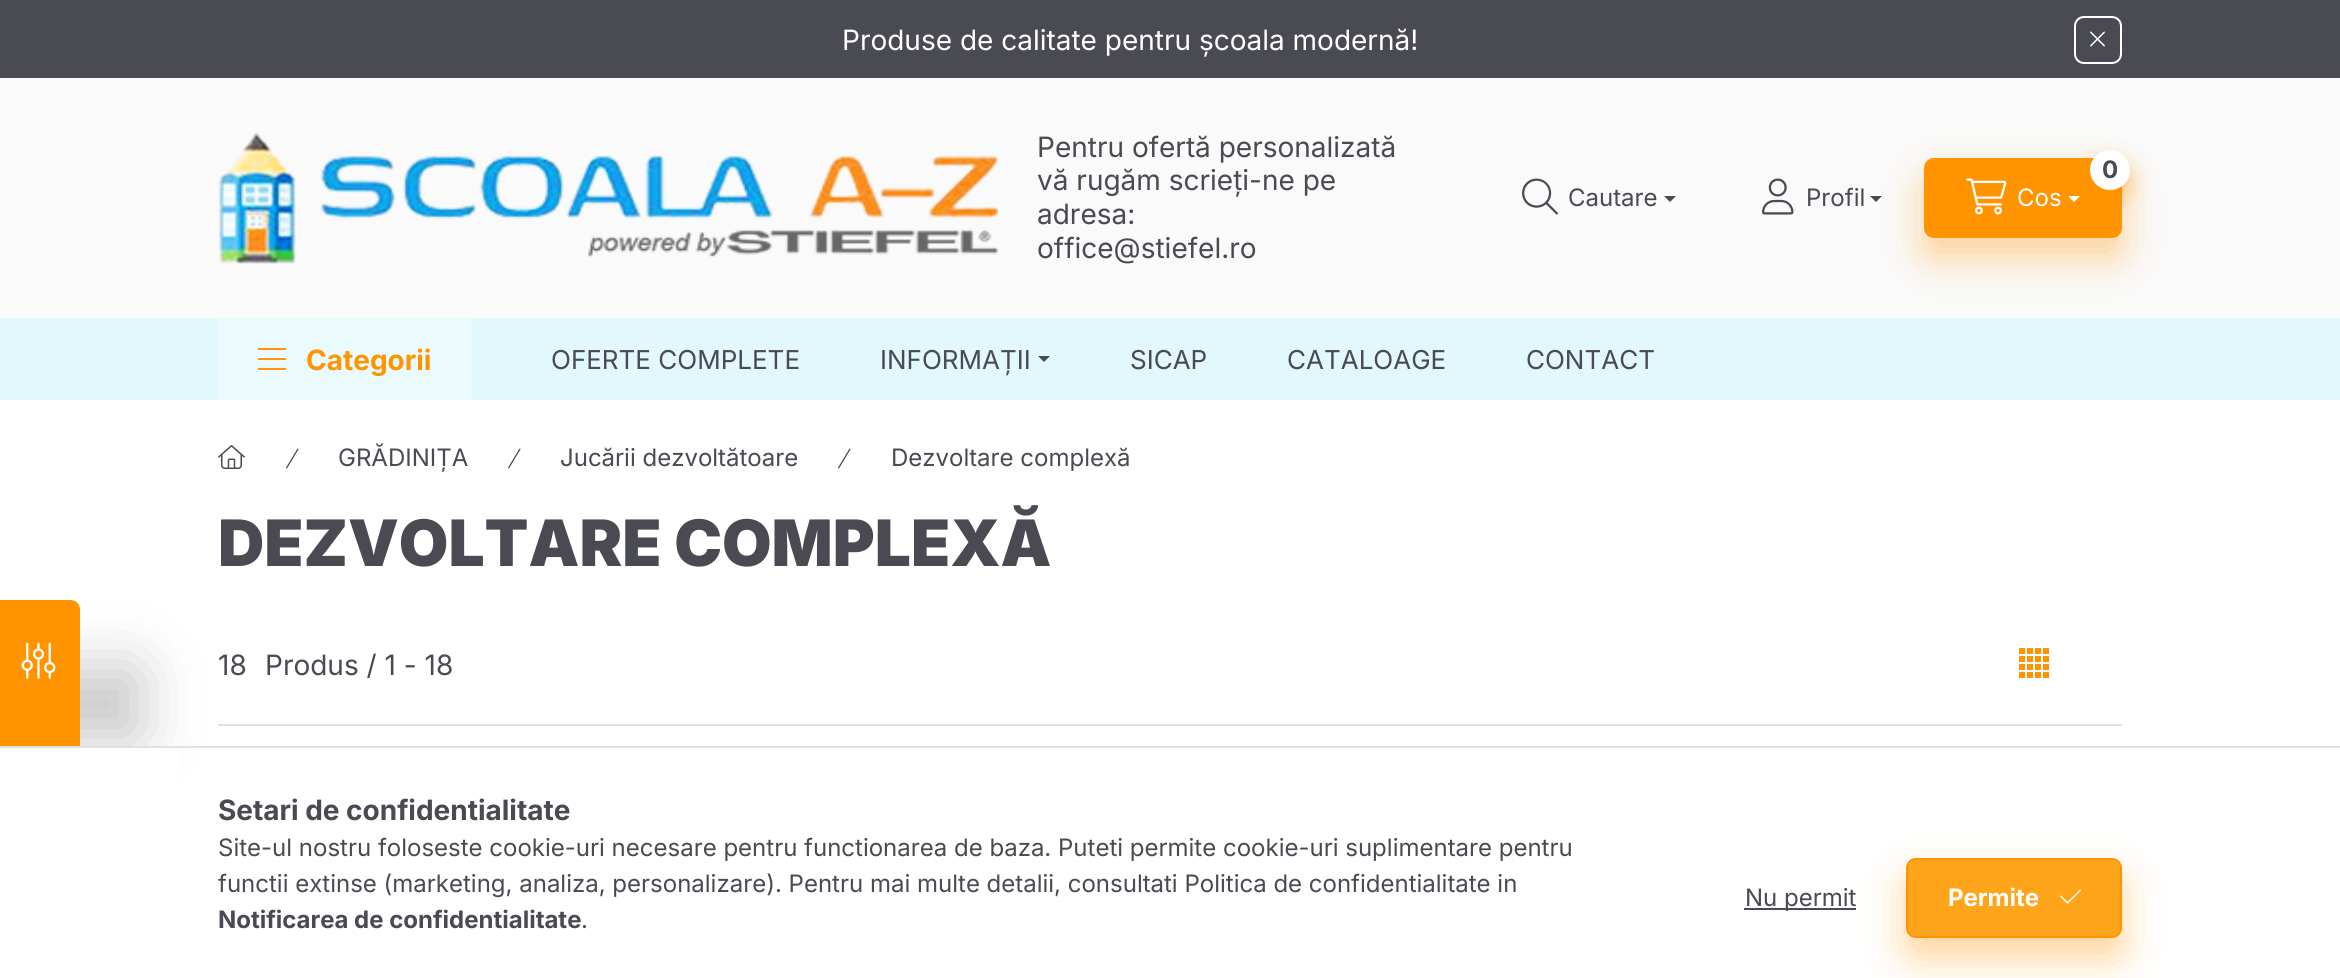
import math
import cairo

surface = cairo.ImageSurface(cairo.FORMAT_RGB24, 2340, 978)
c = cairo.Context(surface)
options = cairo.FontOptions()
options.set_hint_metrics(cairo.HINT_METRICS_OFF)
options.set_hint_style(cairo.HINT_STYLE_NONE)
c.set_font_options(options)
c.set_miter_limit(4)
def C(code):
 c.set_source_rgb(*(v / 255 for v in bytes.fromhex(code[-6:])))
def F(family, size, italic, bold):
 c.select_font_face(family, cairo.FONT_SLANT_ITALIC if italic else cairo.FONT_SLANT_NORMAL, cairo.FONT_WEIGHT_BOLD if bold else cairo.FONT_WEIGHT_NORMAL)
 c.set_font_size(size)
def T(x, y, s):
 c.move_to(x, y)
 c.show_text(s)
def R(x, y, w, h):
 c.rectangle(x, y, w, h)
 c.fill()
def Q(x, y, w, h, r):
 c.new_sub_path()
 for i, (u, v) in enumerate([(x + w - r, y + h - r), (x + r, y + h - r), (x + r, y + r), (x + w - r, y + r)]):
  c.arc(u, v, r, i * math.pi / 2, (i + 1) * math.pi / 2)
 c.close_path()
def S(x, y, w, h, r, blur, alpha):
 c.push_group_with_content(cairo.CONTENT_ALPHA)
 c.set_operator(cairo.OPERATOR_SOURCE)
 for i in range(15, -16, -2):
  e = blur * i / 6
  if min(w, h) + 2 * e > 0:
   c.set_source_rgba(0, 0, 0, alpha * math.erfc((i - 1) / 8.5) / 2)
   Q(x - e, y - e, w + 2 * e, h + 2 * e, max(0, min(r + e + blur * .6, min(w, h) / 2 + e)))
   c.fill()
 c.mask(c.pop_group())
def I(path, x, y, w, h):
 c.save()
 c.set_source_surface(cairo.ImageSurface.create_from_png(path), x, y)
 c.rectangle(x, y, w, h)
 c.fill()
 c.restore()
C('ffffff')
c.paint()
C('494a52')
R(0,0,2340,78)
F('Inter',28,0,0)
C('ffffff')
T(842,50,'Produse de calitate pentru școala modernă!')
Q(2075,17,46,46,9)
c.stroke()
I('1.png',2090,31,15,16)
C('fafafa')
R(0,78,2340,240)
I('2.png',218,132,780,132)
C('494a52')
T(1037,157,'Pentru ofertă personalizată')
T(1037,190,'vă rugăm scrieți-ne pe')
T(1037,224,'adresa:')
T(1037,258,'office@stiefel.ro')
I('3.png',1522,178,36,37)
F('Inter',24,0,0)
T(1568,206,'Cautare')
c.new_path()
c.move_to(1664,196)
c.line_to(1676,196)
c.line_to(1670,202)
c.close_path()
c.fill()
I('4.png',1762,178,32,37)
C('e3f8fc')
R(0,318,2340,82)
C('ff9400')
S(1924,178,198,80,10,20,.4)
C('494a52')
T(1806,206,'Profil')
c.new_path()
c.move_to(1870,196)
c.line_to(1882,196)
c.line_to(1876,202)
c.close_path()
c.fill()
C('ff9400')
Q(1924,158,198,80,10)
c.fill()
C('ff9400')
S(2090,160,40,40,20,10,.4)
C('ffffff')
c.arc(2110,170,20,0,2 * math.pi)
c.fill()
F('Inter',24,0,1)
C('494a52')
T(2102,178,'0')
I('5.png',1966,178,41,37)
F('Inter',24,0,0)
C('ffffff')
T(2017,206,'Cos')
c.new_path()
c.move_to(2068,196)
c.line_to(2080,196)
c.line_to(2074,202)
c.close_path()
c.fill()
C('ebfafd')
R(218,318,254,82)
C('ff9400')
R(258,348,28,2)
R(258,358,28,2)
R(258,368,28,2)
F('Inter',28,0,1)
T(306,370,'Categorii')
F('Inter',26,0,0)
C('494a52')
T(551,369,'OFERTE COMPLETE')
T(880,369,'INFORMAȚII')
c.new_path()
c.move_to(1038,356)
c.line_to(1050,356)
c.line_to(1044,362)
c.close_path()
c.fill()
T(1130,369,'SICAP')
T(1287,369,'CATALOAGE')
T(1526,369,'CONTACT')
C('e1e1e1')
R(218,724,1904,2)
C('000000')
S(-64,664,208,80,10,30,.2)
C('ff9400')
c.new_path()
c.move_to(0,809)
c.line_to(0,600)
c.line_to(70,600)
c.curve_to(76,600,80,604,80,610)
c.line_to(80,799)
c.curve_to(80,804,76,809,70,809)
c.close_path()
c.fill()
I('6.png',21,642,35,37)
I('7.png',218,445,27,24)
I('8.png',286,448,13,21)
F('Inter',24,0,0)
C('494a52')
T(338,466,'GRĂDINIȚA')
I('8.png',508,448,13,21)
T(560,466,'Jucării dezvoltătoare')
I('8.png',838,448,13,21)
T(891,466,'Dezvoltare complexă')
F('Inter Black',64,0,0)
T(218,566,'DEZVOLTARE COMPLEXĂ')
F('Inter',28,0,0)
T(218,675,'18')
T(265,675,'Produs / 1 - 18')
I('9.png',2019,648,30,30)
C('ffffff')
R(0,748,179,61)
C('e1e1e1')
R(0,746,2340,2)
F('Inter',28,0,1)
C('494a52')
T(218,820,'Setari de confidentialitate')
F('Inter',24,0,0)
T(218,856,'Site-ul nostru foloseste cookie-uri necesare pentru functionarea de baza. Puteti permite cookie-uri suplimentare pentru')
T(218,892,'functii extinse (marketing, analiza, personalizare). Pentru mai multe detalii, consultati Politica de confidentialitate in')
F('Inter',24,0,1)
T(218,928,'Notificarea de confidentialitate')
F('Inter',24,0,0)
T(581,928,'.')
R(1744,908,112,2)
T(1745,906,'Nu permit')
C('ff9400')
S(1906,878,216,80,10,20,.4)
C('ffa51b')
Q(1907,859,214,78,9)
c.fill_preserve()
C('ff9400')
c.stroke()
F('Inter',24,0,1)
C('ffffff')
T(1948,906,'Permite')
I('10.png',2060,889,21,15)
surface.write_to_png('o.png')
